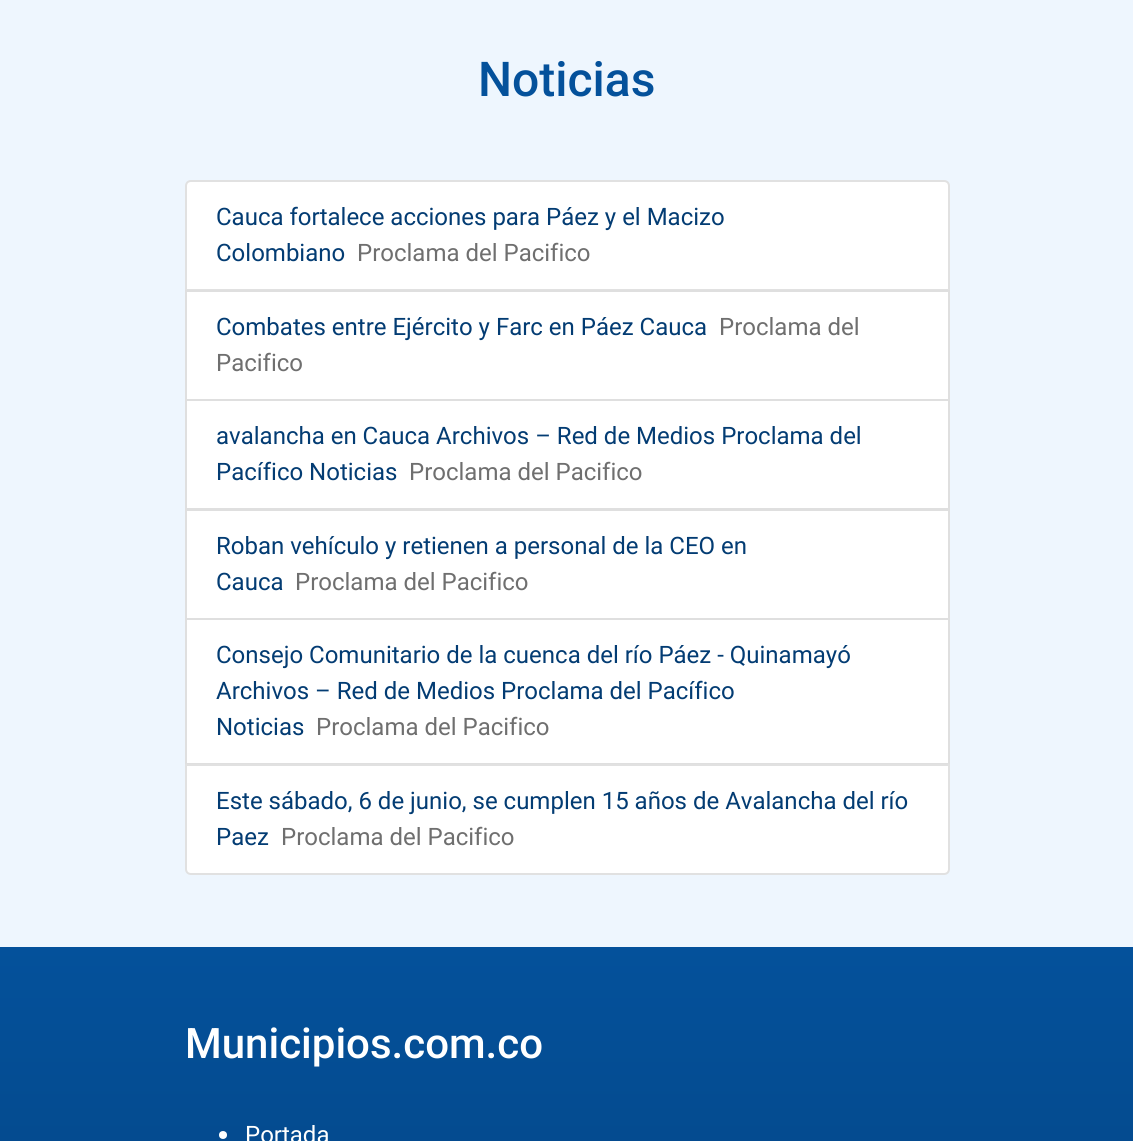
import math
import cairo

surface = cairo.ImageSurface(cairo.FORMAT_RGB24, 1133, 1141)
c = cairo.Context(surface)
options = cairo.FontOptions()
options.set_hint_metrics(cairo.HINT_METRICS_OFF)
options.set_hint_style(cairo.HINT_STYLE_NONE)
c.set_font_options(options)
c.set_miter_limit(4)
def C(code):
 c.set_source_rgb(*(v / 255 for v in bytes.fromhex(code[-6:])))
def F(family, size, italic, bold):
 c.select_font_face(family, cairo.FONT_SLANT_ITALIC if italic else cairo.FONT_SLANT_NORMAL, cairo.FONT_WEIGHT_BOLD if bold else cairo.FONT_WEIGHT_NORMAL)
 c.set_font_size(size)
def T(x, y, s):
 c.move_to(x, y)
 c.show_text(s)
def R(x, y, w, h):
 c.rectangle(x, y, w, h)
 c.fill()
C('eef6fe')
c.paint()
F('Roboto Medium',48,0,0)
C('04519b')
T(478,96,'Noticias')
C('ffffff')
c.new_path()
c.move_to(191,180)
c.line_to(944,180)
c.curve_to(947.5,180,950,182.5,950,186)
c.line_to(950,291)
c.line_to(185,291)
c.line_to(185,186)
c.curve_to(185,182.5,187.5,180,191,180)
c.close_path()
c.fill()
c.new_path()
c.move_to(191,181)
c.line_to(944,181)
c.curve_to(947,181,949,183,949,186)
c.line_to(949,290)
c.line_to(186,290)
c.line_to(186,186)
c.curve_to(186,183,188,181,191,181)
c.close_path()
c.set_source_rgba(0,0,0,0.12)
c.stroke()
F('Roboto',24,0,0)
C('033c73')
T(216,225,'Cauca fortalece acciones para Páez y el Macizo')
T(216,261,'Colombiano')
C('6f6f6f')
T(357,261,'Proclama del Pacifico')
C('ffffff')
c.rectangle(186,291,763,109)
c.fill_preserve()
C('dfdfdf')
c.stroke()
C('033c73')
T(216,335,'Combates entre Ejército y Farc en Páez Cauca')
C('6f6f6f')
T(719,335,'Proclama del')
T(216,371,'Pacifico')
C('ffffff')
c.rectangle(186,400,763,109)
c.fill_preserve()
C('dfdfdf')
c.stroke()
C('033c73')
T(216,444,'avalancha en Cauca Archivos – Red de Medios Proclama del')
T(216,480,'Pacífico Noticias')
C('6f6f6f')
T(409,480,'Proclama del Pacifico')
C('ffffff')
c.rectangle(186,510,763,109)
c.fill_preserve()
C('dfdfdf')
c.stroke()
C('033c73')
T(216,554,'Roban vehículo y retienen a personal de la CEO en')
T(216,590,'Cauca')
C('6f6f6f')
T(295,590,'Proclama del Pacifico')
C('ffffff')
c.rectangle(186,619,763,145)
c.fill_preserve()
C('dfdfdf')
c.stroke()
C('033c73')
T(216,663,'Consejo Comunitario de la cuenca del río Páez - Quinamayó')
T(216,699,'Archivos – Red de Medios Proclama del Pacífico')
T(216,735,'Noticias')
C('6f6f6f')
T(316,735,'Proclama del Pacifico')
C('ffffff')
c.new_path()
c.move_to(185,764)
c.line_to(950,764)
c.line_to(950,869)
c.curve_to(950,872.5,947.5,875,944,875)
c.line_to(191,875)
c.curve_to(187.5,875,185,872.5,185,869)
c.close_path()
c.fill()
c.new_path()
c.move_to(186,765)
c.line_to(949,765)
c.line_to(949,869)
c.curve_to(949,872,947,874,944,874)
c.line_to(191,874)
c.curve_to(188,874,186,872,186,869)
c.close_path()
c.set_source_rgba(0,0,0,0.12)
c.stroke()
C('033c73')
T(216,809,'Este sábado, 6 de junio, se cumplen 15 años de Avalancha del río')
T(216,845,'Paez')
C('6f6f6f')
T(281,845,'Proclama del Pacifico')
gradient = cairo.LinearGradient(567,947,567,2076)
gradient.add_color_stop_rgba(0,0.016,0.318,0.608,1)
gradient.add_color_stop_rgba(.6,0.012,0.235,0.451,1)
gradient.add_color_stop_rgba(1,0.008,0.196,0.373,1)
c.set_source(gradient)
R(0,947,1133,194)
F('Roboto Medium',42,0,0)
C('ffffff')
T(185,1058,'Municipios.com.co')
c.new_path()
c.arc(223,1135,4,0,2 * math.pi)
c.fill()
F('Roboto',24,0,0)
T(245,1143,'Portada')
surface.write_to_png('o.png')
